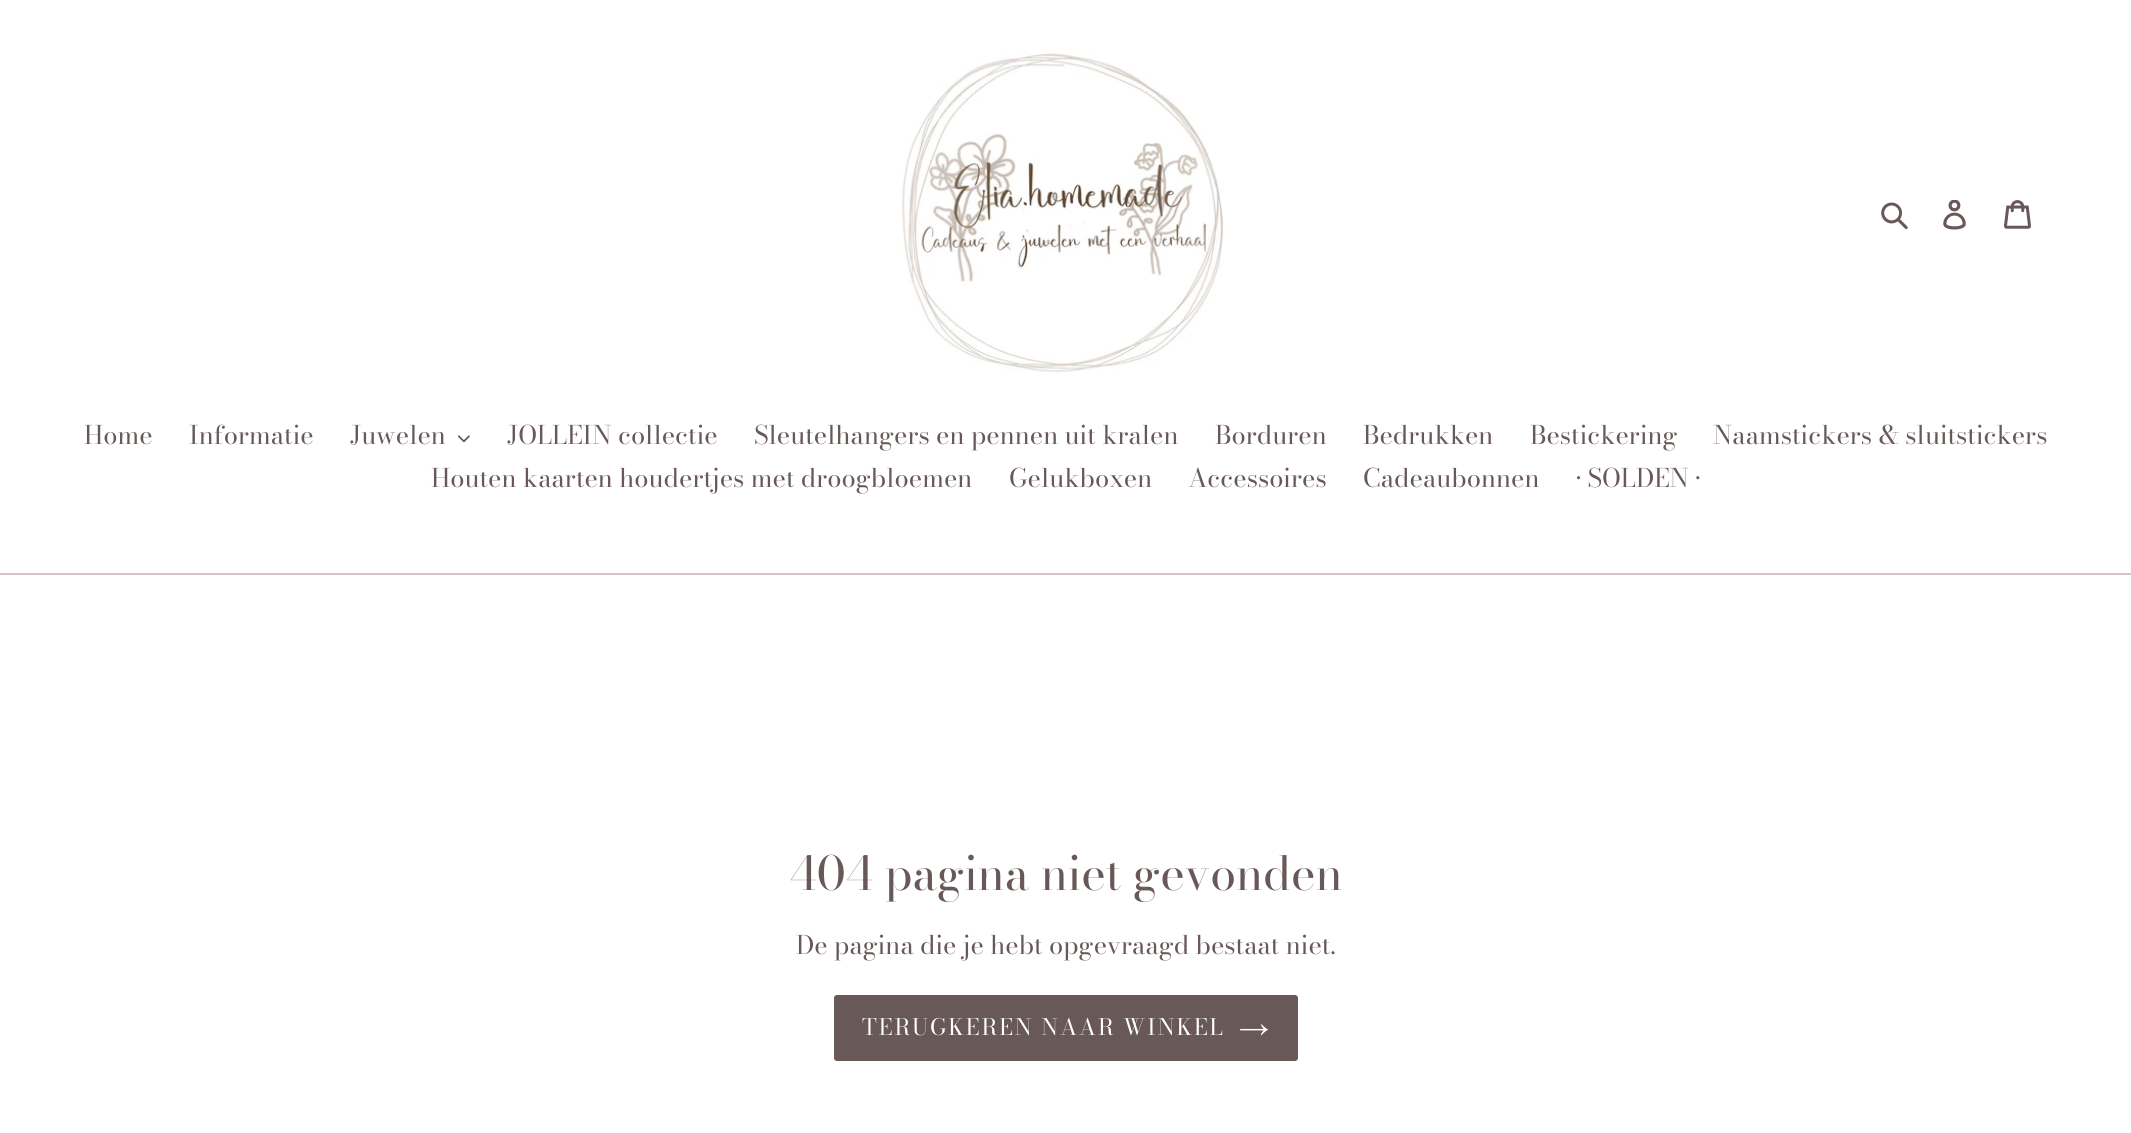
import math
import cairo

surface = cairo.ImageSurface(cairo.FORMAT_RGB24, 2131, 1133)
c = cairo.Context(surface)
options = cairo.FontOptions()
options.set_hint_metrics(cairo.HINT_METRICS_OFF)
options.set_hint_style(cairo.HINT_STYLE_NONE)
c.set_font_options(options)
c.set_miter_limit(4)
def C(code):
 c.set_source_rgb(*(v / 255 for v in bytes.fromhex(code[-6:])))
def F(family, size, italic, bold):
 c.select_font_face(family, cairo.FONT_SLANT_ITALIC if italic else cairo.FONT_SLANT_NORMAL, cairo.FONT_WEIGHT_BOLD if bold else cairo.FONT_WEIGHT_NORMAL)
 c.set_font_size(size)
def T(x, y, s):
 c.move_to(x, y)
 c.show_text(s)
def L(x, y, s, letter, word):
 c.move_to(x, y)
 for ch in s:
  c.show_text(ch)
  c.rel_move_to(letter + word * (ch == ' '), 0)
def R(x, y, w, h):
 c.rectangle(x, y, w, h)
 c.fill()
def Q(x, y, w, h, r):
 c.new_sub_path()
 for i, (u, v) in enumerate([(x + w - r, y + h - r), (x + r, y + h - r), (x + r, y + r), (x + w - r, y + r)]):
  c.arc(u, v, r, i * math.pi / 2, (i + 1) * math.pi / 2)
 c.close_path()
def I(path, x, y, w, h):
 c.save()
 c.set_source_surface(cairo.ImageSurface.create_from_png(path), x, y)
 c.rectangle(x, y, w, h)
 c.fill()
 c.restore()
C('ffffff')
c.paint()
I('1.png',902,53,322,320)
I('2.png',1881,202,27,28)
I('3.png',1943,200,23,30)
I('4.png',2004,200,27,29)
C('d8c4c4')
R(0,573,2131,2)
F('Bodoni Moda',25.5,0,0)
C('685858')
T(84,444,'Home')
T(189,444,'Informatie')
T(350,444,'Juwelen')
I('5.png',458,435,12,8)
T(507,444,'JOLLEIN collectie')
T(754,444,'Sleutelhangers en pennen uit kralen')
T(1215,444,'Borduren')
T(1363,444,'Bedrukken')
T(1530,444,'Bestickering')
T(1713,444,'Naamstickers & sluitstickers')
T(431,487,'Houten kaarten houdertjes met droogbloemen')
T(1009,487,'Gelukboxen')
T(1188,487,'Accessoires')
T(1363,487,'Cadeaubonnen')
T(1576,487,'• SOLDEN •')
F('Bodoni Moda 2',46.5,0,0)
T(789,890,'404 pagina niet gevonden')
F('Bodoni Moda',25.5,0,0)
T(796,954,'De pagina die je hebt opgevraagd bestaat niet.')
Q(834,995,464,66,3)
c.fill()
F('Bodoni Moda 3',22.5,0,0)
C('ffffff')
L(862,1035,'TERUGKEREN NAAR WINKEL',1.8,0)
I('6.png',1240,1024,28,11)
surface.write_to_png('o.png')
